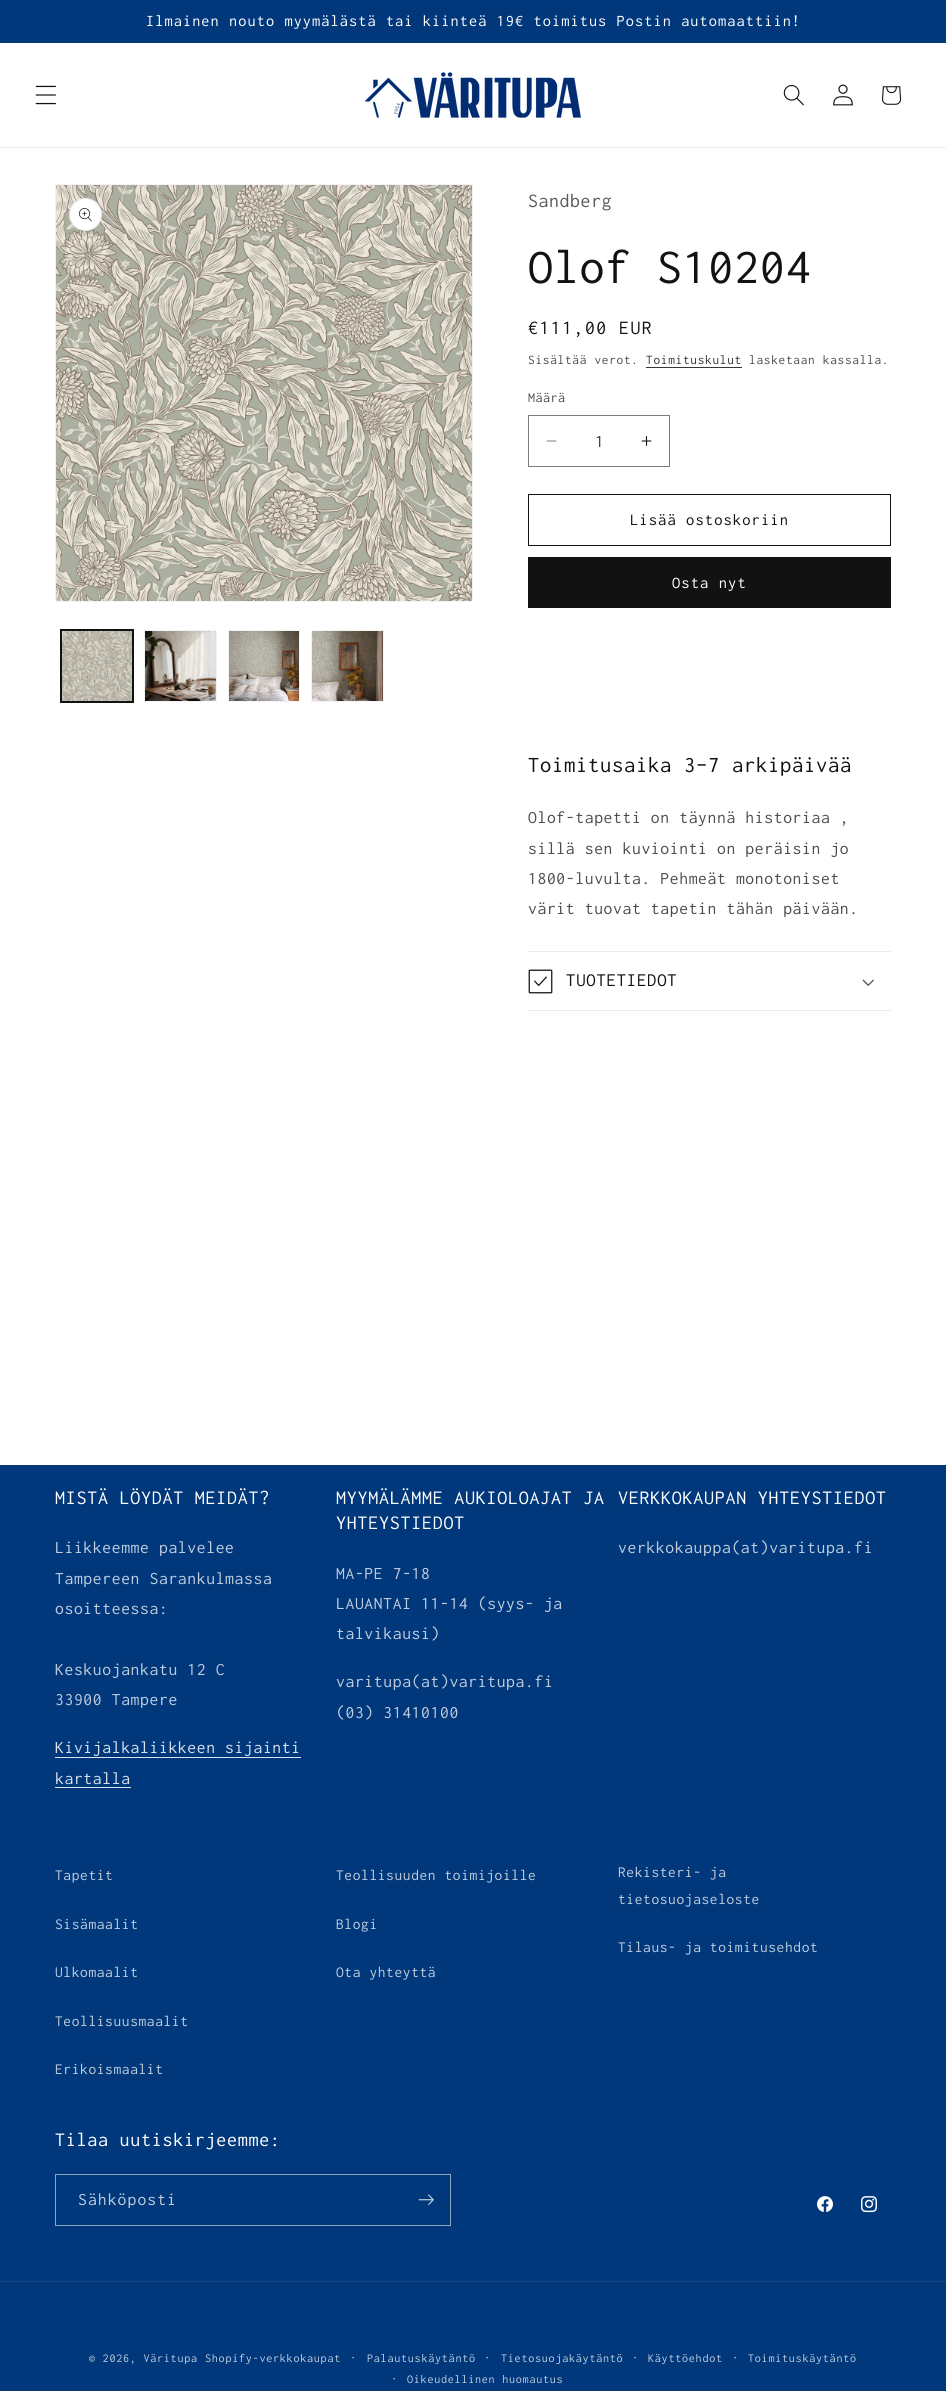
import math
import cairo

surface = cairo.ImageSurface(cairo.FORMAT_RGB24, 946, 2391)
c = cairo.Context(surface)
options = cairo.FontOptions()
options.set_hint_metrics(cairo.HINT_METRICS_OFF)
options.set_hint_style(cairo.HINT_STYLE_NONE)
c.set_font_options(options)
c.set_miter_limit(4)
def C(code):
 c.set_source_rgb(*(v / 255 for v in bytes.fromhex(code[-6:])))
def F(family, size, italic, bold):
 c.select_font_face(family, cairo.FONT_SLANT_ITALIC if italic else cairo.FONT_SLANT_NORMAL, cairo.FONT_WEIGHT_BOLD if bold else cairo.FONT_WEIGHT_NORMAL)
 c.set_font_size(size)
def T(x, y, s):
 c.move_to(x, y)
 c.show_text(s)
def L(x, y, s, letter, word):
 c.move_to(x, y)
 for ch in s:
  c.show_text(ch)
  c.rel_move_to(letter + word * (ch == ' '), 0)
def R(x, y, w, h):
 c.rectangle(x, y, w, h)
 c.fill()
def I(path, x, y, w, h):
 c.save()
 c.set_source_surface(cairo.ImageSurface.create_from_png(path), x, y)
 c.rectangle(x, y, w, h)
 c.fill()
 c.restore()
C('ffffff')
c.paint()
C('00387b')
R(0,0,946,43)
F('Inconsolata',16.25,0,0)
C('ffffff')
L(146,26,'Ilmainen nouto myymälästä tai kiinteä 19€ toimitus Postin automaattiin!',1.1,0)
C('ececec')
R(0,147,946,1)
I('1.png',35,85,21,20)
I('2.png',365,72,216,46)
I('3.png',783,84,21,22)
I('4.png',833,84,20,22)
I('5.png',882,86,20,19)
c.rectangle(55.5,184.5,417,417)
C('f3f3f3')
c.set_line_width(1)
c.stroke()
I('6.png',56,185,416,416)
C('ffffff')
c.arc(85.5,214.5,16.5,0,2 * math.pi)
c.fill()
c.arc(85.5,214.5,16,0,2 * math.pi)
c.set_source_rgba(0.071,0.071,0.071,0.1)
c.stroke()
I('7.png',79,208,13,14)
c.rectangle(60.5,629.5,73,73)
C('121212')
c.stroke()
c.rectangle(61.5,630.5,71,71)
c.stroke()
I('8.png',62,631,70,70)
c.rectangle(144.5,630.5,72,71)
C('f3f3f3')
c.stroke()
I('9.png',145,631,71,70)
c.rectangle(228.5,630.5,71,71)
c.stroke()
I('10.png',229,631,70,70)
c.rectangle(311.5,630.5,72,71)
c.stroke()
I('11.png',312,631,71,70)
F('Inconsolata',19.75,0,0)
C('595959')
L(528,207,'Sandberg',.65,0)
F('Inconsolata',50,0,0)
C('121212')
L(528,283,'Olof S10204',.75,0)
F('Inconsolata',19.75,0,0)
L(528,334,'€111,00 EUR',1.5,0)
F('Inconsolata',13.25,0,0)
C('4d4d4d')
L(528,364,'Sisältää verot.',.75,0)
C('363636')
L(646,364,'Toimituskulut',.75,0)
R(646,367,96,1)
C('4d4d4d')
L(749,364,'lasketaan kassalla.',.75,0)
F('Inconsolata',14,0,0)
L(528,402,'Määrä',.5,0)
I('12.png',546,440,11,2)
I('13.png',641,436,11,10)
c.rectangle(528.5,415.5,141,51)
C('7d7d7d')
c.stroke()
F('Inconsolata',17.6,0,0)
C('363636')
T(595,447,'1')
c.rectangle(528.5,494.5,362,51)
C('121212')
c.stroke()
F('Inconsolata',16.5,0,0)
L(630,525,'Lisää ostoskoriin',1.1,0)
R(528,557,363,51)
C('ffffff')
L(672,588,'Osta nyt',1.1,0)
F('Inconsolata',22.5,0,0)
C('121212')
L(528,772,'Toimitusaika 3–7 arkipäivää',.75,0)
F('Inconsolata',17.6,0,0)
C('4d4d4d')
L(528,823,'Olof-tapetti on täynnä historiaa ,',.65,0)
L(528,854,'sillä sen kuviointi on peräisin jo',.65,0)
L(528,884,'1800-luvulta. Pehmeät monotoniset',.65,0)
L(528,914,'värit tuovat tapetin tähän päivään.',.65,0)
C('ececec')
R(528,951,363,1)
R(528,1010,363,1)
I('14.png',528,969,25,25)
F('Inconsolata',18.75,0,0)
C('121212')
L(566,986,'TUOTETIEDOT',.75,0)
I('15.png',862,979,12,7)
C('00387b')
R(0,1465,946,926)
F('Inconsolata',20,0,0)
C('ffffff')
L(55,1504,'MISTÄ LÖYDÄT MEIDÄT?',.75,0)
F('Inconsolata',17.6,0,0)
C('bfcdde')
L(55,1553,'Liikkeemme palvelee',.65,0)
L(55,1584,'Tampereen Sarankulmassa',.65,0)
L(55,1614,'osoitteessa:',.65,0)
L(55,1675,'Keskuojankatu 12 C',.65,0)
L(55,1705,'33900 Tampere',.65,0)
C('d9e1eb')
L(55,1753,'Kivijalkaliikkeen sijainti',.65,0)
R(55,1757,246,1)
L(55,1784,'kartalla',.65,0)
R(55,1787,76,1)
F('Inconsolata',20,0,0)
C('ffffff')
L(336,1504,'MYYMÄLÄMME AUKIOLOAJAT JA',.75,0)
L(336,1529,'YHTEYSTIEDOT',.75,0)
F('Inconsolata',17.6,0,0)
C('bfcdde')
L(336,1579,'MA-PE 7-18',.65,0)
L(336,1609,'LAUANTAI 11-14 (syys- ja',.65,0)
L(336,1639,'talvikausi)',.65,0)
L(336,1687,'varitupa(at)varitupa.fi',.65,0)
L(336,1718,'(03) 31410100',.65,0)
F('Inconsolata',20,0,0)
C('ffffff')
L(618,1504,'VERKKOKAUPAN YHTEYSTIEDOT',.75,0)
F('Inconsolata',17.6,0,0)
C('bfcdde')
L(618,1553,'verkkokauppa(at)varitupa.fi',.65,0)
F('Inconsolata',15.4,0,0)
L(55,1880,'Tapetit',.65,0)
L(55,1929,'Sisämaalit',.65,0)
L(55,1977,'Ulkomaalit',.65,0)
L(55,2026,'Teollisuusmaalit',.65,0)
L(55,2074,'Erikoismaalit',.65,0)
L(336,1880,'Teollisuuden toimijoille',.65,0)
L(336,1929,'Blogi',.65,0)
L(336,1977,'Ota yhteyttä',.65,0)
L(618,1877,'Rekisteri- ja',.65,0)
L(618,1904,'tietosuojaseloste',.65,0)
L(618,1952,'Tilaus- ja toimitusehdot',.65,0)
F('Inconsolata',20,0,0)
C('ffffff')
L(55,2146,'Tilaa uutiskirjeemme:',.75,0)
c.rectangle(55.5,2174.5,395,51)
C('8ca5c4')
c.stroke()
F('Inconsolata',17.6,0,0)
C('bfcdde')
L(78,2205,'Sähköposti',1.1,0)
I('16.png',418,2194,16,11)
I('17.png',817,2196,16,16)
I('18.png',861,2196,16,17)
C('144886')
R(0,2281,946,1)
F('Inconsolata',12.1,0,0)
C('bfcdde')
L(89,2362,'© 2026, Väritupa',.75,0)
L(205,2362,'Shopify-verkkokaupat',.75,0)
F('Inconsolata',13.25,0,0)
L(350,2362,'·',.75,0)
F('Inconsolata',12.1,0,0)
L(367,2362,'Palautuskäytäntö',.75,0)
F('Inconsolata',13.25,0,0)
L(484,2362,'·',.75,0)
F('Inconsolata',12.1,0,0)
L(501,2362,'Tietosuojakäytäntö',.75,0)
F('Inconsolata',13.25,0,0)
L(632,2362,'·',.75,0)
F('Inconsolata',12.1,0,0)
L(648,2362,'Käyttöehdot',.75,0)
F('Inconsolata',13.25,0,0)
L(732,2362,'·',.75,0)
F('Inconsolata',12.1,0,0)
L(748,2362,'Toimituskäytäntö',.75,0)
F('Inconsolata',13.25,0,0)
L(391,2383,'·',.75,0)
F('Inconsolata',12.1,0,0)
L(407,2383,'Oikeudellinen huomautus',.75,0)
surface.write_to_png('o.png')
